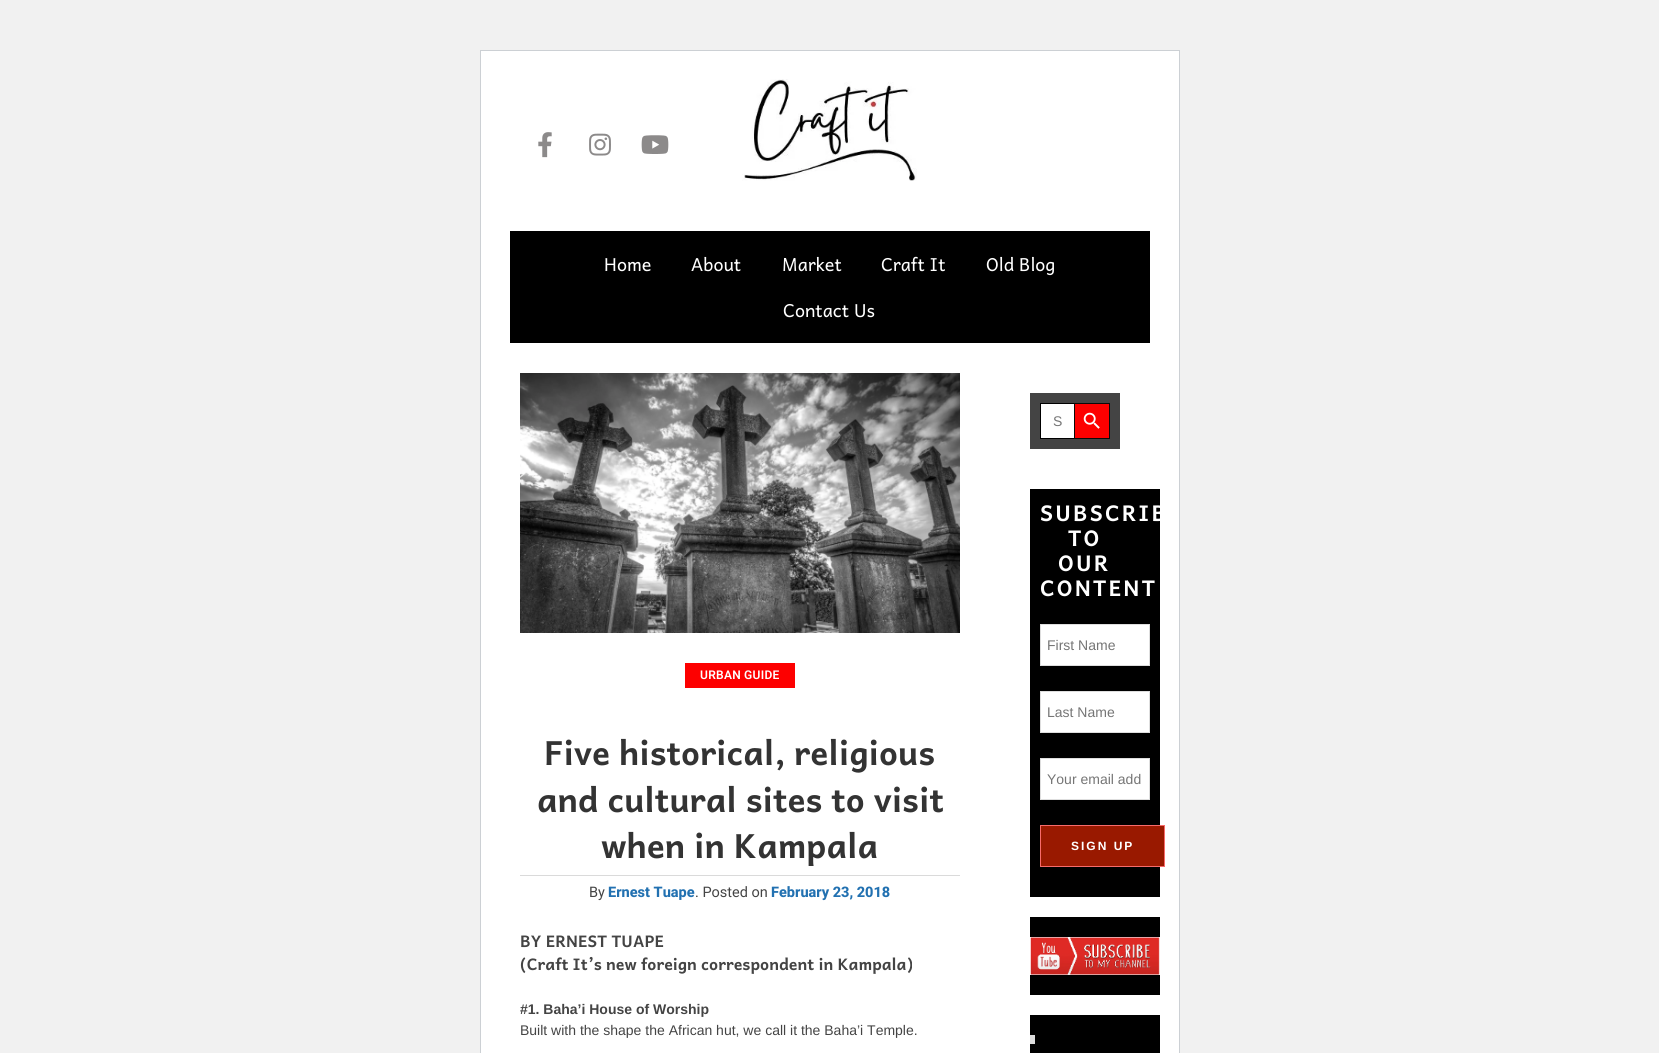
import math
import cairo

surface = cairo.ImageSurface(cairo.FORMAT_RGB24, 1659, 1053)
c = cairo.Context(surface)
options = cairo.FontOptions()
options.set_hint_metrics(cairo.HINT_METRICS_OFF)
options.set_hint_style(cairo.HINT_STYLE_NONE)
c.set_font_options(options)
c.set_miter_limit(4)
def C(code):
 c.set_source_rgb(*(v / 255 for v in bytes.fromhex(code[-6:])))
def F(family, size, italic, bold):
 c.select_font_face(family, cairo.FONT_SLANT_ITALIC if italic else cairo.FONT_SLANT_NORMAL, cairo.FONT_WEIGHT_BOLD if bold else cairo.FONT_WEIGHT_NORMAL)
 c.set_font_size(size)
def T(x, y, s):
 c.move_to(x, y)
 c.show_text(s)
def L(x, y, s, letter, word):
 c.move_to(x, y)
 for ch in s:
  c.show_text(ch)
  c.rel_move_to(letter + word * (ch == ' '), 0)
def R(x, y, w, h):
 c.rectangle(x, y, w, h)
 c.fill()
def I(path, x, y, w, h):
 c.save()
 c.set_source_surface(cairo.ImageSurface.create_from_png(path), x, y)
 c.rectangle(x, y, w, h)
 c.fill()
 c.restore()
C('f1f1f1')
c.paint()
C('ffffff')
c.rectangle(480.5,50.5,699,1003)
c.fill_preserve()
C('ccd0d4')
c.set_line_width(1)
c.stroke()
I('1.png',538,132,14,26)
I('2.png',589,133,22,23)
I('3.png',641,135,28,19)
I('4.png',742,79,175,102)
C('000000')
R(510,231,640,112)
F('Andika',18,0,0)
C('ffffff')
T(604,271,'Home')
T(691,271,'About')
T(782,271,'Market')
T(881,271,'Craft It')
T(986,271,'Old Blog')
T(783,317,'Contact Us')
I('5.png',520,373,440,260)
C('fd0000')
R(685,663,110,25)
F('Roboto SemiBold',12,0,0)
C('ffffff')
L(700,679,'URBAN GUIDE',.25,0)
C('dadada')
R(520,875,440,1)
F('Andika',33.4,0,1)
C('333333')
T(544,765,'Five historical, religious')
T(537,812,'and cultural sites to visit')
T(601,858,'when in Kampala')
F('Roboto',14.5,0,0)
C('444444')
T(589,897,'By')
F('Roboto ExtraBold',14.5,0,0)
C('2271b1')
T(608,897,'Ernest Tuape')
F('Roboto',14.5,0,0)
C('444444')
T(695,897,'. Posted on')
F('Roboto ExtraBold',14.5,0,0)
C('2271b1')
T(771,897,'February 23, 2018')
F('Andika',16,0,1)
C('444444')
T(520,947,'BY ERNEST TUAPE')
T(520,970,'(Craft It’s new foreign correspondent in Kampala)')
F('Liberation Sans',14,0,1)
T(520,1014,'#1. Baha’i House of Worship')
F('Liberation Sans',14,0,0)
T(520,1035,'Built with the shape the African hut, we call it the Baha’i Temple.')
c.rectangle(1035,398,80,46)
c.set_line_width(10)
c.stroke()
C('000000')
R(1040,403,34,1)
R(1040,438,34,1)
R(1040,403,1,36)
C('757575')
T(1053,426,'S')
C('fd0000')
c.rectangle(1074.5,403.5,35,35)
c.fill_preserve()
C('0a0a0a')
c.set_line_width(1)
c.stroke()
I('6.png',1083,412,17,17)
C('000000')
R(1030,489,130,408)
F('Andika',21.75,0,1)
C('ffffff')
L(1040,521,'SUBSCRIB',2,0)
L(1068,546,'TO',2,0)
L(1058,571,'OUR',2,0)
L(1040,596,'CONTENT',2,0)
c.rectangle(1040.5,624.5,109,41)
c.fill_preserve()
C('dedede')
c.stroke()
F('Liberation Sans',14,0,0)
C('757575')
T(1047,650,'First Name')
C('ffffff')
c.rectangle(1040.5,691.5,109,41)
c.fill_preserve()
C('dedede')
c.stroke()
C('757575')
T(1047,717,'Last Name')
C('ffffff')
c.rectangle(1040.5,758.5,109,41)
c.fill_preserve()
C('dedede')
c.stroke()
C('757575')
T(1047,784,'Your email add')
C('991900')
c.rectangle(1040.5,825.5,124,41)
c.fill_preserve()
C('f76b6a')
c.stroke()
F('Liberation Sans',12,0,1)
C('ffffff')
L(1071,850,'SIGN UP',2,0)
C('000000')
R(1030,917,130,78)
I('7.png',1030,937,130,38)
R(1030,1015,130,38)
C('dddddd')
R(1030,1035,5,9)
surface.write_to_png('o.png')
